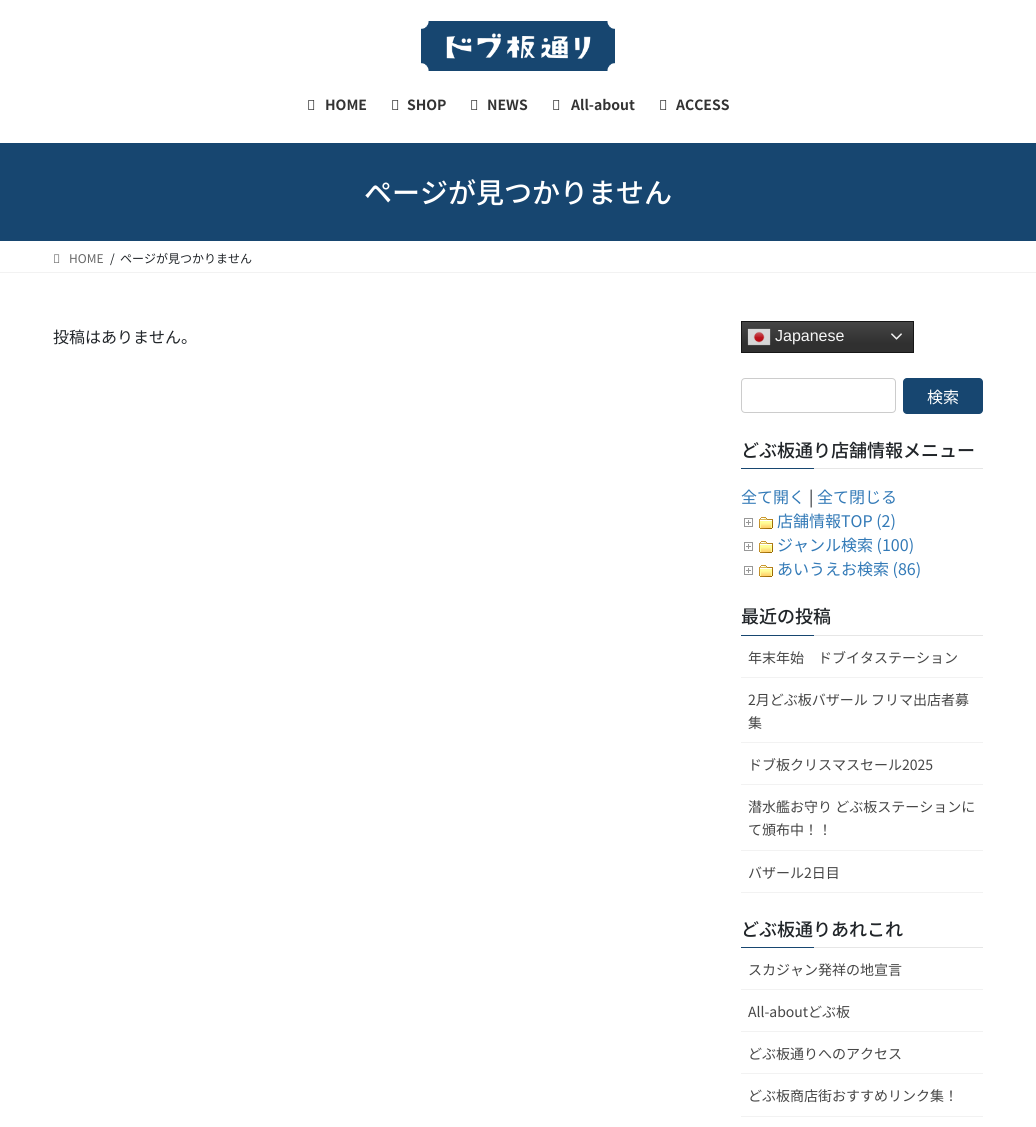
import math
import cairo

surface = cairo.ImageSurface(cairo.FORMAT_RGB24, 1036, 1127)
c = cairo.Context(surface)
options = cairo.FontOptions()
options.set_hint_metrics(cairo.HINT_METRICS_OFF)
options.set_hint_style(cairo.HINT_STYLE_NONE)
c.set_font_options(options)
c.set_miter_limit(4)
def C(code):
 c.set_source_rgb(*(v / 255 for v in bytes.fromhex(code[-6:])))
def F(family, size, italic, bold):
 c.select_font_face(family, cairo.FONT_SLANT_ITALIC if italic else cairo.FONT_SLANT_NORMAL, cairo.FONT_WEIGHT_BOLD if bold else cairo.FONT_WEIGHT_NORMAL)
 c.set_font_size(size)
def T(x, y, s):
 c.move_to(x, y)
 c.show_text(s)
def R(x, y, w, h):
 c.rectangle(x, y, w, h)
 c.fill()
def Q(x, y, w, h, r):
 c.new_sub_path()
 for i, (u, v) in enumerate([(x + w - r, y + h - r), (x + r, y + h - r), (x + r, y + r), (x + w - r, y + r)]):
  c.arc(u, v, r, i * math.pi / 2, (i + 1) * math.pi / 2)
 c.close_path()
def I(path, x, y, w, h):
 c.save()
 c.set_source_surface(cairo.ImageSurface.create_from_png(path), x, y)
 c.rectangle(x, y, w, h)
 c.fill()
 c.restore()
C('ffffff')
c.paint()
I('1.png',421,21,194,50)
I('2.png',308,100,7,10)
F('Noto Sans JP',14,0,1)
C('333333')
T(325,110,'HOME')
I('2.png',392,100,7,10)
T(407,110,'SHOP')
I('2.png',471,100,7,10)
T(487,110,'NEWS')
I('2.png',553,100,7,10)
T(571,110,'All-about')
I('2.png',660,100,7,10)
T(676,110,'ACCESS')
C('174670')
R(0,143,1036,98)
F('Noto Sans JP Medium',28,0,0)
C('ffffff')
T(364,203,'ページが見つかりません')
C('f2f2f2')
R(0,272,1036,1)
I('3.png',54,254,6,9)
F('Noto Sans JP',12,0,0)
C('666666')
T(69,263,'HOME')
C('212529')
T(110,263,'/')
T(120,263,'ページが見つかりません')
F('Noto Sans JP',16,0,0)
T(53,343,'投稿はありません。')
gradient = cairo.LinearGradient(828,321,828,353)
gradient.add_color_stop_rgba(0,0.278,0.278,0.278,1)
gradient.add_color_stop_rgba(.7,0.188,0.188,0.188,1)
c.set_source(gradient)
R(742,322,171,30)
c.rectangle(741.5,321.5,172,31)
C('161616')
c.set_line_width(1)
c.stroke()
I('4.png',747,328,24,18)
F('Liberation Sans',16,0,0)
C('f7f7f7')
T(775,341,'Japanese')
I('5.png',891,333,11,7)
Q(741.5,378.5,154,34,3.5)
C('cccccc')
c.stroke()
C('174670')
Q(903,378,80,36,4)
c.fill()
F('Noto Sans JP',16,0,0)
C('ffffff')
T(927,403,'検索')
C('e6e6e6')
R(814,468,169,1)
F('Noto Sans JP Medium',18,0,0)
C('212529')
T(741,457,'どぶ板通り店舗情報メニュー')
C('174670')
R(741,468,73,1)
F('Noto Sans JP',16,0,0)
C('337ab7')
T(741,503,'全て開く')
C('212529')
T(809,503,'|')
C('337ab7')
T(817,503,'全て閉じる')
I('6.png',744,518,9,9)
I('7.png',759,517,14,12)
T(777,527,'店舗情報TOP (2)')
I('6.png',744,542,9,9)
I('7.png',759,541,14,12)
T(777,551,'ジャンル検索 (100)')
I('6.png',744,566,9,9)
I('7.png',759,565,14,12)
T(777,575,'あいうえお検索 (86)')
C('e6e6e6')
R(814,635,169,1)
F('Noto Sans JP Medium',18,0,0)
C('212529')
T(741,623,'最近の投稿')
C('174670')
R(741,635,73,1)
C('f2f2f2')
R(741,677,242,1)
F('Noto Sans JP',14,0,0)
C('464646')
T(748,663,'年末年始　ドブイタステーション')
C('f2f2f2')
R(741,742,242,1)
C('464646')
T(748,705,'2月どぶ板バザール フリマ出店者募')
T(748,728,'集')
C('f2f2f2')
R(741,784,242,1)
C('464646')
T(748,770,'ドブ板クリスマスセール2025')
C('f2f2f2')
R(741,850,242,1)
C('464646')
T(748,812,'潜水艦お守り どぶ板ステーションに')
T(748,835,'て頒布中！！')
C('f2f2f2')
R(741,892,242,1)
C('464646')
T(748,878,'バザール2日目')
C('e6e6e6')
R(814,947,169,1)
F('Noto Sans JP Medium',18,0,0)
C('212529')
T(741,936,'どぶ板通りあれこれ')
C('174670')
R(741,947,73,1)
C('f2f2f2')
R(741,989,242,1)
F('Noto Sans JP',14,0,0)
C('464646')
T(748,975,'スカジャン発祥の地宣言')
C('f2f2f2')
R(741,1031,242,1)
C('464646')
T(748,1017,'All-aboutどぶ板')
C('f2f2f2')
R(741,1073,242,1)
C('464646')
T(748,1059,'どぶ板通りへのアクセス')
C('f2f2f2')
R(741,1116,242,1)
C('464646')
T(748,1101,'どぶ板商店街おすすめリンク集！')
surface.write_to_png('o.png')
